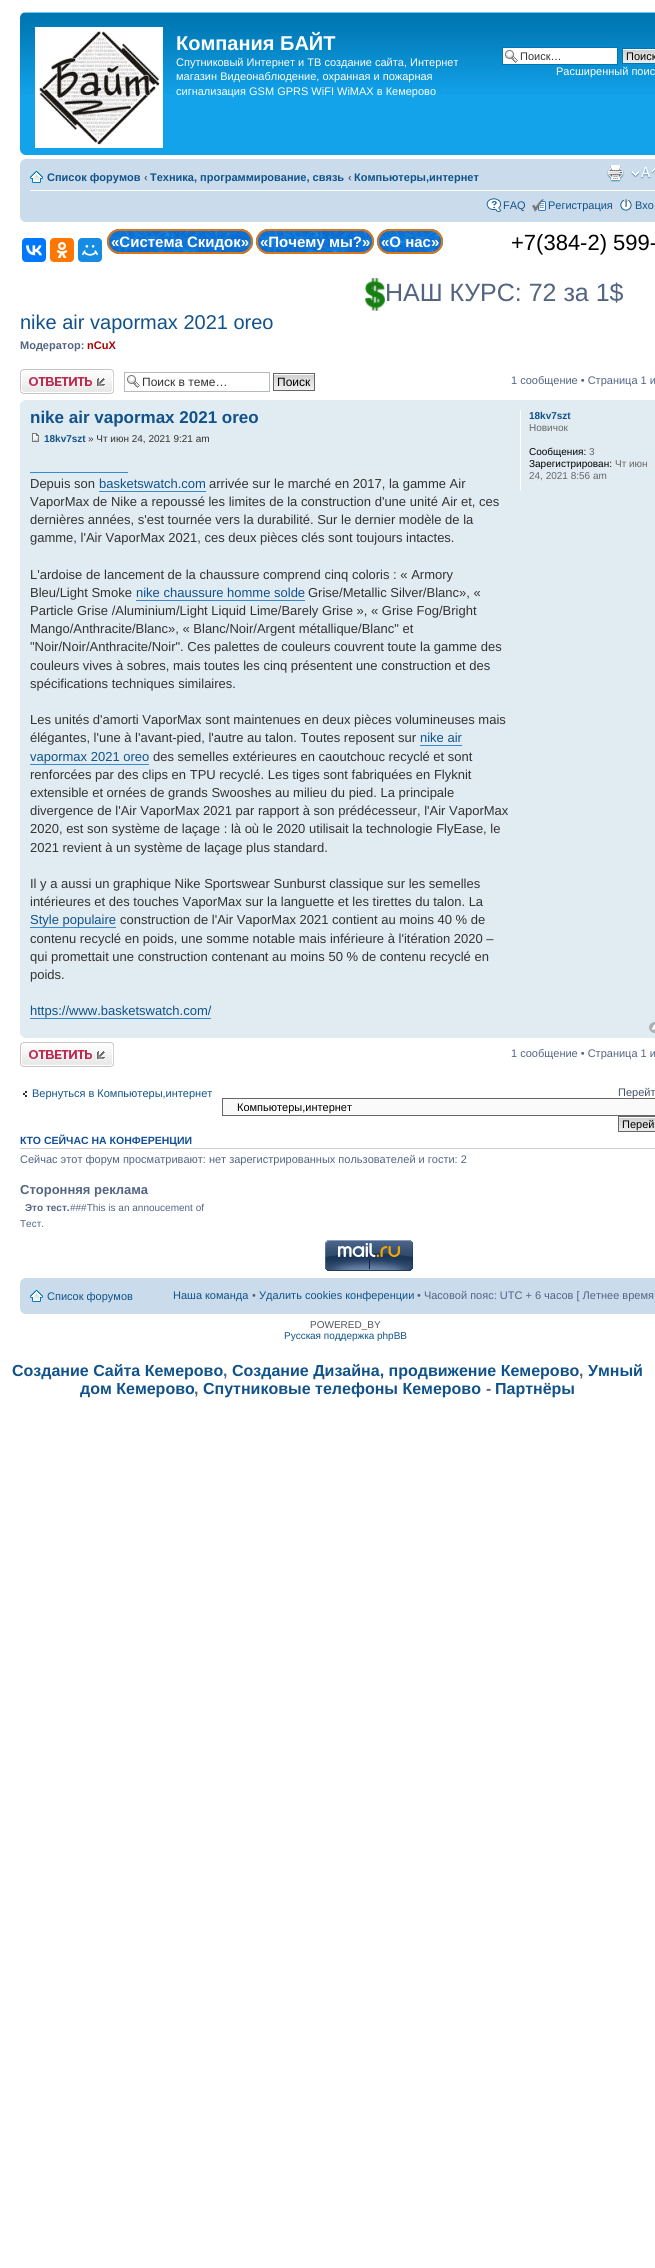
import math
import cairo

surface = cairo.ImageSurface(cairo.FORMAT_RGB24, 655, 2268)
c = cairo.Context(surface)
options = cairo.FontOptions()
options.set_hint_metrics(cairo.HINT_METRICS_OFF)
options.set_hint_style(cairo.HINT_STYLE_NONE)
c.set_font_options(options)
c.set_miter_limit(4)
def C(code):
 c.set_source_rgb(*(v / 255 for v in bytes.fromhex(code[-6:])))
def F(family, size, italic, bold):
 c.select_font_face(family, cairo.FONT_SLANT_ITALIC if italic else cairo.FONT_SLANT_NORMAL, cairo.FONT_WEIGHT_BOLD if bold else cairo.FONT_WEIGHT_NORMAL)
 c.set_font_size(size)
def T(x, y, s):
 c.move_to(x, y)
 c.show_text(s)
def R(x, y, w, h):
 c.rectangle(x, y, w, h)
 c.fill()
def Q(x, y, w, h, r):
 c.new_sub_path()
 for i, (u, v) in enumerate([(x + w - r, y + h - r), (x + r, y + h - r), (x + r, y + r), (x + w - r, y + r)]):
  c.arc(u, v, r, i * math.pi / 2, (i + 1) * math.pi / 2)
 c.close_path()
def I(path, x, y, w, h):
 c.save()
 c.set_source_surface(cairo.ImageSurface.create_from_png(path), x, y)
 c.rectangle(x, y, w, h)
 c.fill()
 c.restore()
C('ffffff')
c.paint()
C('12a3eb')
R(20,94,635,61)
I('1.png',20,12,635,82)
I('2.png',20,12,5,5)
I('3.png',35,27,128,121)
F('Liberation Sans',20,0,1)
C('ffffff')
T(176,50,'Компания БАЙТ')
F('Liberation Sans',11,0,0)
T(176,66,'Спутниковый Интернет и ТВ создание сайта, Интернет')
T(176,80,'магазин Видеонаблюдение, охранная и пожарная')
T(176,95,'сигнализация GSM GPRS WiFI WiMAX в Кемерово')
R(503,48,114,16)
I('4.png',505,50,13,13)
c.rectangle(502.5,47.5,115,17)
C('0075b0')
c.set_line_width(1)
c.stroke()
C('333333')
T(520,60,'Поиск…')
I('5.png',623,49,32,14)
c.rectangle(622.5,48.5,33,15)
C('0075b0')
c.stroke()
C('000000')
T(626,60,'Поиск')
C('ffffff')
T(556,75,'Расширенный поис')
I('6.png',20,150,5,5)
C('cadceb')
R(20,159,635,63)
I('7.png',20,159,5,5)
C('ffffff')
R(30,190,625,1)
I('8.png',30,171,13,12)
F('Liberation Sans',11,0,1)
C('105289')
T(47,181,'Список форумов')
C('536482')
T(144,181,'‹')
C('105289')
T(150,181,'Техника, программирование, связь')
C('536482')
T(348,181,'‹')
C('105289')
T(354,181,'Компьютеры,интернет')
I('9.png',607,165,17,17)
I('10.png',631,167,24,12)
I('11.png',486,198,16,14)
F('Liberation Sans',11,0,0)
T(503,209,'FAQ')
I('12.png',532,199,14,13)
T(548,209,'Регистрация')
I('13.png',620,199,12,12)
T(635,209,'Вхо')
I('14.png',20,217,5,5)
C('0077ff')
Q(22,238,24,24,4)
c.fill()
I('15.png',26,245,16,11)
C('ff7700')
Q(50,238,24,24,4)
c.fill()
I('16.png',56,242,12,16)
C('168de2')
Q(78,238,24,24,4)
c.fill()
I('17.png',82,245,16,11)
I('18.png',107,229,146,25)
Q(108,230,144,23,11.5)
C('db7618')
c.set_line_width(2)
c.stroke()
F('Liberation Sans',15,0,1)
C('ffffff')
T(111,247,'«Система Скидок»')
I('19.png',256,229,118,25)
Q(257,230,116,23,11.5)
C('db7618')
c.stroke()
C('ffffff')
T(260,247,'«Почему мы?»')
I('20.png',377,229,66,25)
Q(378,230,64,23,11.5)
C('db7618')
c.stroke()
C('ffffff')
T(381,247,'«О нас»')
F('Liberation Sans',22,0,0)
C('000000')
T(511,250,'+7(384-2) 599-')
I('21.png',365,278,20,33)
F('Liberation Sans',25,0,0)
C('536482')
T(385,301,'НАШ КУРС: 72 за 1$')
F('Liberation Sans',20,0,0)
C('105289')
T(20,329,'nike air vapormax 2021 oreo')
F('Liberation Sans',11,0,1)
C('536482')
T(20,349,'Модератор:')
C('aa0000')
T(87,349,'nCuX')
I('22.png',20,369,94,25)
I('4.png',127,375,13,13)
c.rectangle(124.5,372.5,145,19)
C('b4bac0')
c.set_line_width(1)
c.stroke()
F('Liberation Sans',12,0,0)
C('333333')
T(142,386,'Поиск в теме…')
I('23.png',274,374,40,16)
c.rectangle(273.5,373.5,41,17)
C('666666')
c.stroke()
C('000000')
T(277,386,'Поиск')
F('Liberation Sans',11,0,0)
C('536482')
T(511,384,'1 сообщение • Страница 1 и')
C('e1ebf2')
R(20,400,635,638)
I('24.png',20,400,5,5)
F('Liberation Sans',17,0,1)
C('105289')
T(30,423,'nike air vapormax 2021 oreo')
I('25.png',32,433,7,9)
F('Liberation Sans',10,0,1)
T(44,442,'18kv7szt')
F('Liberation Sans',10,0,0)
C('333333')
T(88,442,'» Чт июн 24, 2021 9:21 am')
C('368ad2')
R(30,472,98,1)
F('Liberation Sans',13,0,0)
C('333333')
T(30,488,'Depuis son')
C('105289')
T(99,488,'basketswatch.com')
C('368ad2')
R(99,491,107,1)
C('333333')
T(209,488,'arrivée sur le marché en 2017, la gamme Air')
T(30,506,'VaporMax de Nike a repoussé les limites de la construction d\'une unité Air et, ces')
T(30,524,'dernières années, s\'est tournée vers la durabilité. Sur le dernier modèle de la')
T(30,542,'gamme, l\'Air VaporMax 2021, ces deux pièces clés sont toujours intactes.')
T(30,579,'L\'ardoise de lancement de la chaussure comprend cinq coloris : « Armory')
T(30,597,'Bleu/Light Smoke')
C('105289')
T(136,597,'nike chaussure homme solde')
C('368ad2')
R(136,600,169,1)
C('333333')
T(308,597,'Grise/Metallic Silver/Blanc», «')
T(30,615,'Particle Grise /Aluminium/Light Liquid Lime/Barely Grise », « Grise Fog/Bright')
T(30,633,'Mango/Anthracite/Blanc», « Blanc/Noir/Argent métallique/Blanc" et')
T(30,651,'"Noir/Noir/Anthracite/Noir". Ces palettes de couleurs couvrent toute la gamme des')
T(30,670,'couleurs vives à sobres, mais toutes les cinq présentent une construction et des')
T(30,688,'spécifications techniques similaires.')
T(30,724,'Les unités d\'amorti VaporMax sont maintenues en deux pièces volumineuses mais')
T(30,742,'élégantes, l\'une à l\'avant-pied, l\'autre au talon. Toutes reposent sur')
C('105289')
T(420,742,'nike air')
C('368ad2')
R(420,745,42,1)
C('105289')
T(30,761,'vapormax 2021 oreo')
C('368ad2')
R(30,764,119,1)
C('333333')
T(153,761,'des semelles extérieures en caoutchouc recyclé et sont')
T(30,779,'renforcées par des clips en TPU recyclé. Les tiges sont fabriquées en Flyknit')
T(30,797,'extensible et ornées de grands Swooshes au milieu du pied. La principale')
T(30,815,'divergence de l\'Air VaporMax 2021 par rapport à son prédécesseur, l\'Air VaporMax')
T(30,833,'2020, est son système de laçage : là où le 2020 utilisait la technologie FlyEase, le')
T(30,852,'2021 revient à un système de laçage plus standard.')
T(30,888,'Il y a aussi un graphique Nike Sportswear Sunburst classique sur les semelles')
T(30,906,'intérieures et des touches VaporMax sur la languette et les tirettes du talon. La')
C('105289')
T(30,924,'Style populaire')
C('368ad2')
R(30,927,86,1)
C('333333')
T(120,924,'construction de l\'Air VaporMax 2021 contient au moins 40 % de')
T(30,943,'contenu recyclé en poids, une somme notable mais inférieure à l\'itération 2020 –')
T(30,961,'qui promettait une construction contenant au moins 50 % de contenu recyclé en')
T(30,979,'poids.')
C('105289')
T(30,1015,'https://www.basketswatch.com/')
C('368ad2')
R(30,1018,181,1)
C('ffffff')
R(520,410,1,80)
F('Liberation Sans',10,0,1)
C('105289')
T(529,419,'18kv7szt')
F('Liberation Sans',10,0,0)
C('666666')
T(529,431,'Новичок')
C('000000')
T(529,455,'Сообщения:')
C('666666')
T(589,455,'3')
C('000000')
T(529,467,'Зарегистрирован:')
C('666666')
T(615,467,'Чт июн')
T(529,479,'24, 2021 8:56 am')
I('26.png',649,1022,6,11)
I('27.png',20,1033,5,5)
I('22.png',20,1042,94,25)
F('Liberation Sans',11,0,0)
C('536482')
T(511,1057,'1 сообщение • Страница 1 и')
I('28.png',23,1091,4,6)
C('105289')
T(32,1097,'Вернуться в Компьютеры,интернет')
C('425067')
T(618,1096,'Перейт')
C('fafafa')
c.rectangle(222.5,1098.5,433,17)
c.fill_preserve()
C('666666')
c.stroke()
C('000000')
T(237,1111,'Компьютеры,интернет')
I('29.png',619,1117,36,14)
c.rectangle(618.5,1116.5,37,15)
C('666666')
c.stroke()
C('000000')
T(622,1128,'Перей')
C('cccccc')
R(20,1148,635,1)
F('Liberation Sans',10.5,0,1)
C('115098')
T(20,1144,'КТО СЕЙЧАС НА КОНФЕРЕНЦИИ')
F('Liberation Sans',11,0,0)
C('536482')
T(20,1163,'Сейчас этот форум просматривают: нет зарегистрированных пользователей и гости: 2')
F('Liberation Sans',13,0,1)
T(20,1194,'Сторонняя реклама')
F('Liberation Sans',10,0,1)
T(25,1211,'Это тест.')
F('Liberation Sans',10,0,0)
T(70,1211,'###This is an annoucement of')
T(20,1227,'Тест.')
I('30.png',325,1240,88,31)
C('cadceb')
R(20,1278,635,36)
I('7.png',20,1278,5,5)
I('8.png',30,1290,13,12)
F('Liberation Sans',11,0,0)
C('105289')
T(47,1300,'Список форумов')
T(173,1299,'Наша команда')
C('536482')
T(252,1299,'•')
C('105289')
T(259,1299,'Удалить cookies конференции')
C('536482')
T(417,1299,'• Часовой пояс: UTC + 6 часов [ Летнее время')
I('14.png',20,1309,5,5)
F('Liberation Sans',10,0,0)
C('555555')
T(310,1328,'POWERED_BY')
C('105289')
T(284,1339,'Русская поддержка phpBB')
F('Liberation Sans',16,0,1)
T(12,1376,'Создание Сайта Кемерово')
C('536482')
T(223,1376,',')
C('105289')
T(232,1376,'Создание Дизайна, продвижение Кемерово')
C('536482')
T(579,1376,',')
C('105289')
T(588,1376,'Умный')
T(80,1394,'дом Кемерово')
T(203,1394,'Спутниковые телефоны Кемерово')
C('536482')
T(486,1394,'-')
C('105289')
T(495,1394,'Партнёры')
C('536482')
T(194,1394,',')
surface.write_to_png('o.png')
